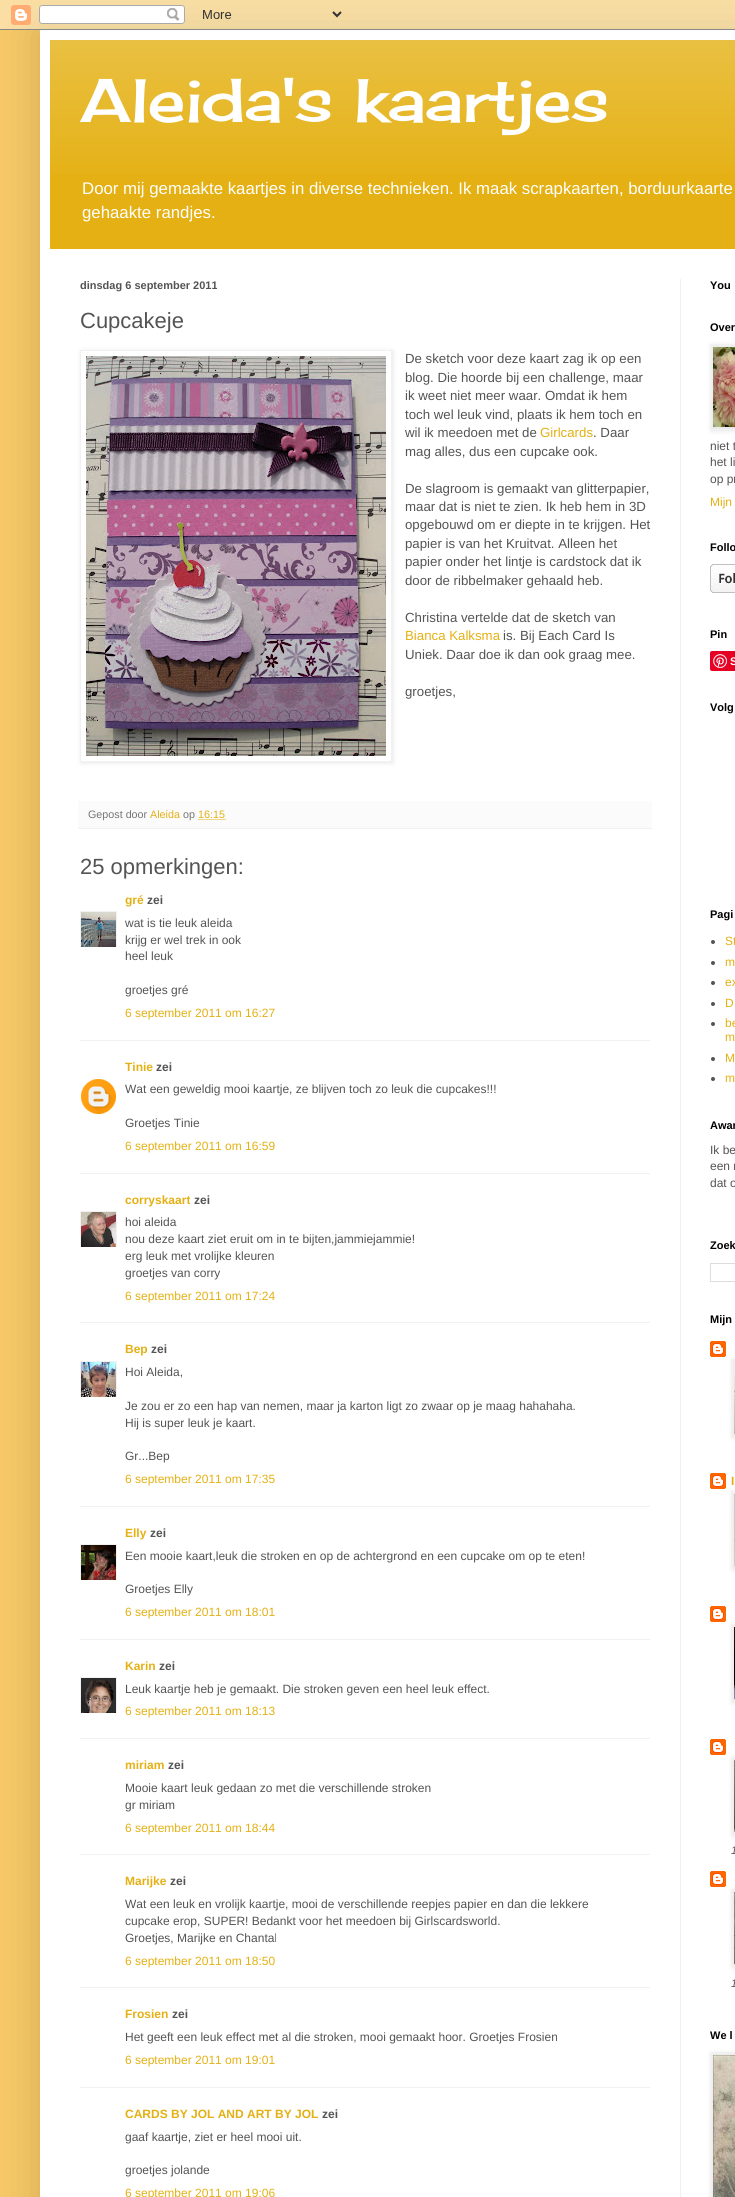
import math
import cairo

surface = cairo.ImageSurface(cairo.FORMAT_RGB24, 735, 2197)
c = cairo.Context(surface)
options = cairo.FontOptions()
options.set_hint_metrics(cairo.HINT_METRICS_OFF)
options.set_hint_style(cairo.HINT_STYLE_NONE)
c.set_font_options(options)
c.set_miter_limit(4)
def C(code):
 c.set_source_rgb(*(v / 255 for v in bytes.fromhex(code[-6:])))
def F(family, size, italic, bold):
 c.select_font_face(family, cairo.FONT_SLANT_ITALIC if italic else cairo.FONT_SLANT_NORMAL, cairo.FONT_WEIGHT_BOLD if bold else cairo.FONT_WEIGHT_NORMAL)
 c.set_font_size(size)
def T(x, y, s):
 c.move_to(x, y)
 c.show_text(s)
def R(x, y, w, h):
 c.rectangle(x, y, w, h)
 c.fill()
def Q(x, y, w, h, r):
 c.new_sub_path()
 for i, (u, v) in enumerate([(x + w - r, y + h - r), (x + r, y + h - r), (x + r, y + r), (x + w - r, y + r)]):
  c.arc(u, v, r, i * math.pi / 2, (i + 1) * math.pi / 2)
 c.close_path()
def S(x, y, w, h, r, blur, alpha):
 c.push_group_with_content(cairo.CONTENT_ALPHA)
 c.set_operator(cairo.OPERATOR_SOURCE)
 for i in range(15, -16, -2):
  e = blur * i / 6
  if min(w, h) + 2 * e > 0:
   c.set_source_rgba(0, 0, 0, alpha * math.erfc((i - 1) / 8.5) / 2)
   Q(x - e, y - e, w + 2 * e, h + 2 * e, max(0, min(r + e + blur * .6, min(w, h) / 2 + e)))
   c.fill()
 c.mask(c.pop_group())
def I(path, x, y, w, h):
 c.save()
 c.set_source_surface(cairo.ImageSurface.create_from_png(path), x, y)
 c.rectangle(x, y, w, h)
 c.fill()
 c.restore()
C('f6c866')
c.paint()
C('000000')
S(40,30,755,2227,0,20,.15)
I('1.png',0,0,735,30)
C('ffffff')
R(40,30,695,2167)
C('e4b013')
R(50,40,685,209)
I('2.png',50,40,685,133)
F('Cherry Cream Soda',60,0,0)
C('ffffff')
T(80,122,'Aleida\'s kaartjes')
F('Liberation Sans',16.8,0,0)
T(82,194,'Door mij gemaakte kaartjes in diverse technieken. Ik maak scrapkaarten, borduurkaarte')
T(82,218,'gehaakte randjes.')
C('f1f1f1')
R(680,279,1,1918)
F('Liberation Sans',11,0,1)
C('545454')
T(80,289,'dinsdag 6 september 2011')
F('Liberation Sans',22,0,0)
T(80,328,'Cupcakeje')
c.save()
c.set_fill_rule(cairo.FILL_RULE_EVEN_ODD)
c.new_path()
c.move_to(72,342)
c.line_to(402,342)
c.line_to(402,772)
c.line_to(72,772)
c.close_path()
c.move_to(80,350)
c.line_to(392,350)
c.line_to(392,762)
c.line_to(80,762)
c.close_path()
c.clip()
C('000000')
S(81,351,312,412,0,2.5,.1)
c.restore()
c.rectangle(80.5,350.5,311,411)
C('f1f1f1')
c.set_line_width(1)
c.stroke()
I('3.png',86,356,300,400)
F('Liberation Sans',13.25,0,0)
C('545454')
T(405,363,'De sketch voor deze kaart zag ik op een')
T(405,382,'blog. Die hoorde bij een challenge, maar')
T(405,400,'ik weet niet meer waar. Omdat ik hem')
T(405,419,'toch wel leuk vind, plaats ik hem toch en')
T(405,437,'wil ik meedoen met de')
C('e4b013')
T(540,437,'Girlcards')
C('545454')
T(593,437,'. Daar')
T(405,456,'mag alles, dus een cupcake ook.')
T(405,493,'De slagroom is gemaakt van glitterpapier,')
T(405,511,'maar dat is niet te zien. Ik heb hem in 3D')
T(405,529,'opgebouwd om er diepte in te krijgen. Het')
T(405,548,'papier is van het Kruitvat. Alleen het')
T(405,566,'papier onder het lintje is cardstock dat ik')
T(405,585,'door de ribbelmaker gehaald heb.')
T(405,622,'Christina vertelde dat de sketch van')
C('e4b013')
T(405,640,'Bianca Kalksma')
C('545454')
T(503,640,'is. Bij Each Card Is')
T(405,659,'Uniek. Daar doe ik dan ook graag mee.')
T(405,696,'groetjes,')
C('fbfbfb')
R(78,801,574,27)
C('f1f1f1')
R(78,828,574,1)
F('Liberation Sans',10.75,0,0)
C('757575')
T(88,818,'Gepost door')
C('e4b013')
T(150,818,'Aleida')
C('757575')
T(183,818,'op')
c.new_path()
c.move_to(198.5,819.5)
c.line_to(225.5,819.5)
C('e4b013')
c.set_dash([1,1])
c.stroke()
T(198,818,'16:15')
F('Liberation Sans',22,0,0)
C('545454')
T(80,874,'25 opmerkingen:')
F('Liberation Sans',12,0,1)
C('e4b013')
T(125,904,'gré')
C('545454')
T(147,904,'zei')
c.save()
c.rectangle(80,911,37,36)
c.clip()
c.rectangle(80.5,911.5,36,36)
C('f1f1f1')
c.set_dash([])
c.stroke()
c.restore()
I('4.png',81,912,35,35)
F('Liberation Sans',12,0,0)
T(125,927,'wat is tie leuk aleida')
T(125,944,'krijg er wel trek in ook')
T(125,960,'heel leuk')
T(125,994,'groetjes gré')
C('e4b013')
T(125,1017,'6 september 2011 om 16:27')
C('f1f1f1')
R(80,1040,570,1)
F('Liberation Sans',12,0,1)
C('e4b013')
T(125,1071,'Tinie')
C('545454')
T(156,1071,'zei')
I('5.png',81,1079,35,35)
F('Liberation Sans',12,0,0)
T(125,1093,'Wat een geweldig mooi kaartje, ze blijven toch zo leuk die cupcakes!!!')
T(125,1127,'Groetjes Tinie')
C('e4b013')
T(125,1150,'6 september 2011 om 16:59')
C('f1f1f1')
R(80,1173,570,1)
F('Liberation Sans',12,0,1)
C('e4b013')
T(125,1204,'corryskaart')
C('545454')
T(194,1204,'zei')
c.save()
c.rectangle(80,1211,37,36)
c.clip()
c.rectangle(80.5,1211.5,36,36)
C('f1f1f1')
c.set_dash([])
c.stroke()
c.restore()
I('6.png',81,1212,35,35)
F('Liberation Sans',12,0,0)
T(125,1226,'hoi aleida')
T(125,1243,'nou deze kaart ziet eruit om in te bijten,jammiejammie!')
T(125,1260,'erg leuk met vrolijke kleuren')
T(125,1277,'groetjes van corry')
C('e4b013')
T(125,1300,'6 september 2011 om 17:24')
C('f1f1f1')
R(80,1322,570,1)
F('Liberation Sans',12,0,1)
C('e4b013')
T(125,1353,'Bep')
C('545454')
T(151,1353,'zei')
c.save()
c.rectangle(80,1361,37,36)
c.clip()
c.rectangle(80.5,1361.5,36,36)
C('f1f1f1')
c.set_dash([])
c.stroke()
c.restore()
I('7.png',81,1362,35,35)
F('Liberation Sans',12,0,0)
T(125,1376,'Hoi Aleida,')
T(125,1410,'Je zou er zo een hap van nemen, maar ja karton ligt zo zwaar op je maag hahahaha.')
T(125,1427,'Hij is super leuk je kaart.')
T(125,1460,'Gr...Bep')
C('e4b013')
T(125,1483,'6 september 2011 om 17:35')
C('f1f1f1')
R(80,1506,570,1)
F('Liberation Sans',12,0,1)
C('e4b013')
T(125,1537,'Elly')
C('545454')
T(150,1537,'zei')
c.save()
c.rectangle(80,1544,37,36)
c.clip()
c.rectangle(80.5,1544.5,36,36)
C('f1f1f1')
c.set_dash([])
c.stroke()
c.restore()
I('8.png',81,1545,35,35)
F('Liberation Sans',12,0,0)
T(125,1560,'Een mooie kaart,leuk die stroken en op de achtergrond en een cupcake om op te eten!')
T(125,1593,'Groetjes Elly')
C('e4b013')
T(125,1616,'6 september 2011 om 18:01')
C('f1f1f1')
R(80,1639,570,1)
F('Liberation Sans',12,0,1)
C('e4b013')
T(125,1670,'Karin')
C('545454')
T(159,1670,'zei')
c.save()
c.rectangle(80,1677,37,36)
c.clip()
c.rectangle(80.5,1677.5,36,36)
C('f1f1f1')
c.set_dash([])
c.stroke()
c.restore()
I('9.png',81,1678,35,35)
F('Liberation Sans',12,0,0)
T(125,1693,'Leuk kaartje heb je gemaakt. Die stroken geven een heel leuk effect.')
C('e4b013')
T(125,1715,'6 september 2011 om 18:13')
C('f1f1f1')
R(80,1738,570,1)
F('Liberation Sans',12,0,1)
C('e4b013')
T(125,1769,'miriam')
C('545454')
T(168,1769,'zei')
F('Liberation Sans',12,0,0)
T(125,1792,'Mooie kaart leuk gedaan zo met die verschillende stroken')
T(125,1809,'gr miriam')
C('e4b013')
T(125,1832,'6 september 2011 om 18:44')
C('f1f1f1')
R(80,1854,570,1)
F('Liberation Sans',12,0,1)
C('e4b013')
T(125,1885,'Marijke')
C('545454')
T(170,1885,'zei')
F('Liberation Sans',12,0,0)
T(125,1908,'Wat een leuk en vrolijk kaartje, mooi de verschillende reepjes papier en dan die lekkere')
T(125,1925,'cupcake erop, SUPER! Bedankt voor het meedoen bij Girlscardsworld.')
T(125,1942,'Groetjes, Marijke en Chantal')
C('e4b013')
T(125,1965,'6 september 2011 om 18:50')
C('f1f1f1')
R(80,1987,570,1)
F('Liberation Sans',12,0,1)
C('e4b013')
T(125,2018,'Frosien')
C('545454')
T(172,2018,'zei')
F('Liberation Sans',12,0,0)
T(125,2041,'Het geeft een leuk effect met al die stroken, mooi gemaakt hoor. Groetjes Frosien')
C('e4b013')
T(125,2064,'6 september 2011 om 19:01')
C('f1f1f1')
R(80,2087,570,1)
F('Liberation Sans',12,0,1)
C('e4b013')
T(125,2118,'CARDS BY JOL AND ART BY JOL')
C('545454')
T(322,2118,'zei')
F('Liberation Sans',12,0,0)
T(125,2141,'gaaf kaartje, ziet er heel mooi uit.')
T(125,2174,'groetjes jolande')
C('e4b013')
T(125,2197,'6 september 2011 om 19:06')
F('Liberation Sans',11,0,1)
C('000000')
T(710,289,'You')
T(710,331,'Over')
C('000000')
S(711,345,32,86,0,2.5,.1)
c.rectangle(710.5,344.5,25,85)
C('f1f1f1')
c.set_dash([])
c.stroke()
I('10.png',713,347,22,80)
F('Liberation Sans',12,0,0)
C('545454')
T(710,450,'niet t')
T(710,466,'het li')
T(710,483,'op pr')
C('e4b013')
T(710,506,'Mijn')
F('Liberation Sans',11,0,1)
C('000000')
T(710,551,'Follo')
I('11.png',710,564,25,29)
T(710,638,'Pin')
C('e60023')
Q(710,651,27,20,2)
c.fill()
I('12.png',713,654,14,14)
C('ffffff')
T(730,665,'S')
C('000000')
T(710,711,'Volg')
T(710,918,'Pagi')
C('545454')
c.new_path()
c.arc(713,942,2,0,2 * math.pi)
c.fill()
F('Liberation Sans',12,0,0)
C('e4b013')
T(725,945,'St')
C('545454')
c.new_path()
c.arc(713,963,2,0,2 * math.pi)
c.fill()
C('e4b013')
T(725,966,'m')
C('545454')
c.new_path()
c.arc(713,983,2,0,2 * math.pi)
c.fill()
C('e4b013')
T(725,986,'ex')
C('545454')
c.new_path()
c.arc(713,1004,2,0,2 * math.pi)
c.fill()
C('e4b013')
T(725,1007,'D')
C('545454')
c.new_path()
c.arc(713,1024,2,0,2 * math.pi)
c.fill()
C('e4b013')
T(725,1027,'be')
T(725,1041,'m')
C('545454')
c.new_path()
c.arc(713,1059,2,0,2 * math.pi)
c.fill()
C('e4b013')
T(725,1062,'M')
C('545454')
c.new_path()
c.arc(713,1079,2,0,2 * math.pi)
c.fill()
C('e4b013')
T(725,1082,'m')
F('Liberation Sans',11,0,1)
C('000000')
T(710,1129,'Awar')
F('Liberation Sans',12,0,0)
C('545454')
T(710,1154,'Ik be')
T(710,1170,'een r')
T(710,1187,'dat o')
F('Liberation Sans',11,0,1)
C('000000')
T(710,1249,'Zoek')
c.rectangle(710.5,1263.5,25,18)
C('dddddd')
c.stroke()
C('000000')
T(710,1323,'Mijn')
I('13.png',710,1341,16,16)
C('000000')
S(732,1360,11,78,0,2.5,.1)
c.rectangle(731.5,1359.5,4,77)
C('f1f1f1')
c.stroke()
I('14.png',734,1362,1,72)
I('13.png',710,1473,16,16)
F('Liberation Sans',12,0,1)
C('e4b013')
T(731,1485,'I')
C('000000')
S(732,1492,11,78,0,2.5,.1)
c.rectangle(731.5,1491.5,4,77)
C('f1f1f1')
c.stroke()
I('15.png',734,1494,1,72)
I('13.png',710,1606,16,16)
C('000000')
S(732,1625,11,78,0,2.5,.1)
c.rectangle(731.5,1624.5,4,77)
C('f1f1f1')
c.stroke()
I('16.png',734,1627,1,72)
I('13.png',710,1739,16,16)
C('000000')
S(732,1758,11,78,0,2.5,.1)
c.rectangle(731.5,1757.5,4,77)
C('f1f1f1')
c.stroke()
I('17.png',734,1760,1,72)
F('Liberation Sans',11,1,0)
C('545454')
T(731,1854,'1')
I('13.png',710,1871,16,16)
C('000000')
S(732,1890,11,78,0,2.5,.1)
c.rectangle(731.5,1889.5,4,77)
C('f1f1f1')
c.stroke()
I('18.png',734,1892,1,72)
C('545454')
T(731,1987,'1')
F('Liberation Sans',11,0,1)
C('000000')
T(710,2039,'We l')
C('000000')
S(711,2053,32,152,0,2.5,.1)
c.rectangle(710.5,2052.5,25,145)
C('f1f1f1')
c.stroke()
I('19.png',713,2055,22,142)
surface.write_to_png('o.png')
